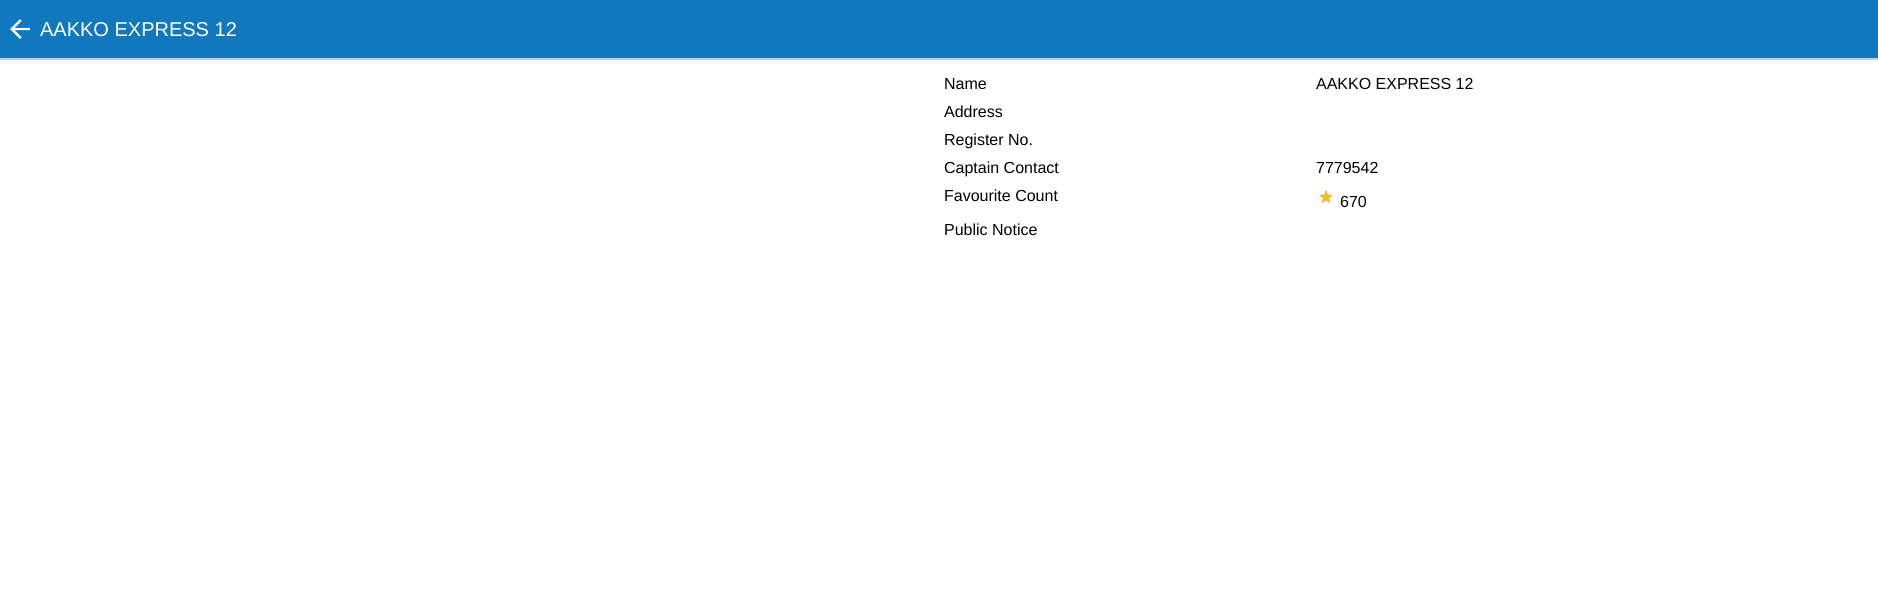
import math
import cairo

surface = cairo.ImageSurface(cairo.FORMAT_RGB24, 1878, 597)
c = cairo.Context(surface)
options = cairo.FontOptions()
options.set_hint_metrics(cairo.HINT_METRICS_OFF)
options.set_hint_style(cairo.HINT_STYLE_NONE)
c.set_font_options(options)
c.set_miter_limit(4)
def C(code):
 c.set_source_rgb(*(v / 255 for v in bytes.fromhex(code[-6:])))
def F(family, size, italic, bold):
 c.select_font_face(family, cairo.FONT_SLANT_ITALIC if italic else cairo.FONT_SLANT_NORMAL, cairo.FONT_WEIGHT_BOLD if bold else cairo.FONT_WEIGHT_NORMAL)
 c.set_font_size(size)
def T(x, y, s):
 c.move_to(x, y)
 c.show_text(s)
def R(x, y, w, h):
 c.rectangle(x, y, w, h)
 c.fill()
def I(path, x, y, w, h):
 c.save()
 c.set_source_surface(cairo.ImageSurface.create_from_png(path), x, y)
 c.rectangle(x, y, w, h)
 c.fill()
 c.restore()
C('ffffff')
c.paint()
C('1178bd')
R(0,0,1878,58)
C('cccccc')
R(0,58,1878,2)
I('1.png',10,19,20,20)
F('Liberation Sans',20,0,0)
C('ffffff')
T(40,36,'AAKKO EXPRESS 12')
F('Liberation Sans',16,0,0)
C('000000')
T(944,89,'Name')
T(1316,89,'AAKKO EXPRESS 12')
T(944,117,'Address')
T(944,145,'Register No.')
T(944,173,'Captain Contact')
T(1316,173,'7779542')
T(944,201,'Favourite Count')
I('2.png',1319,190,14,13)
T(1340,207,'670')
T(944,235,'Public Notice')
surface.write_to_png('o.png')
